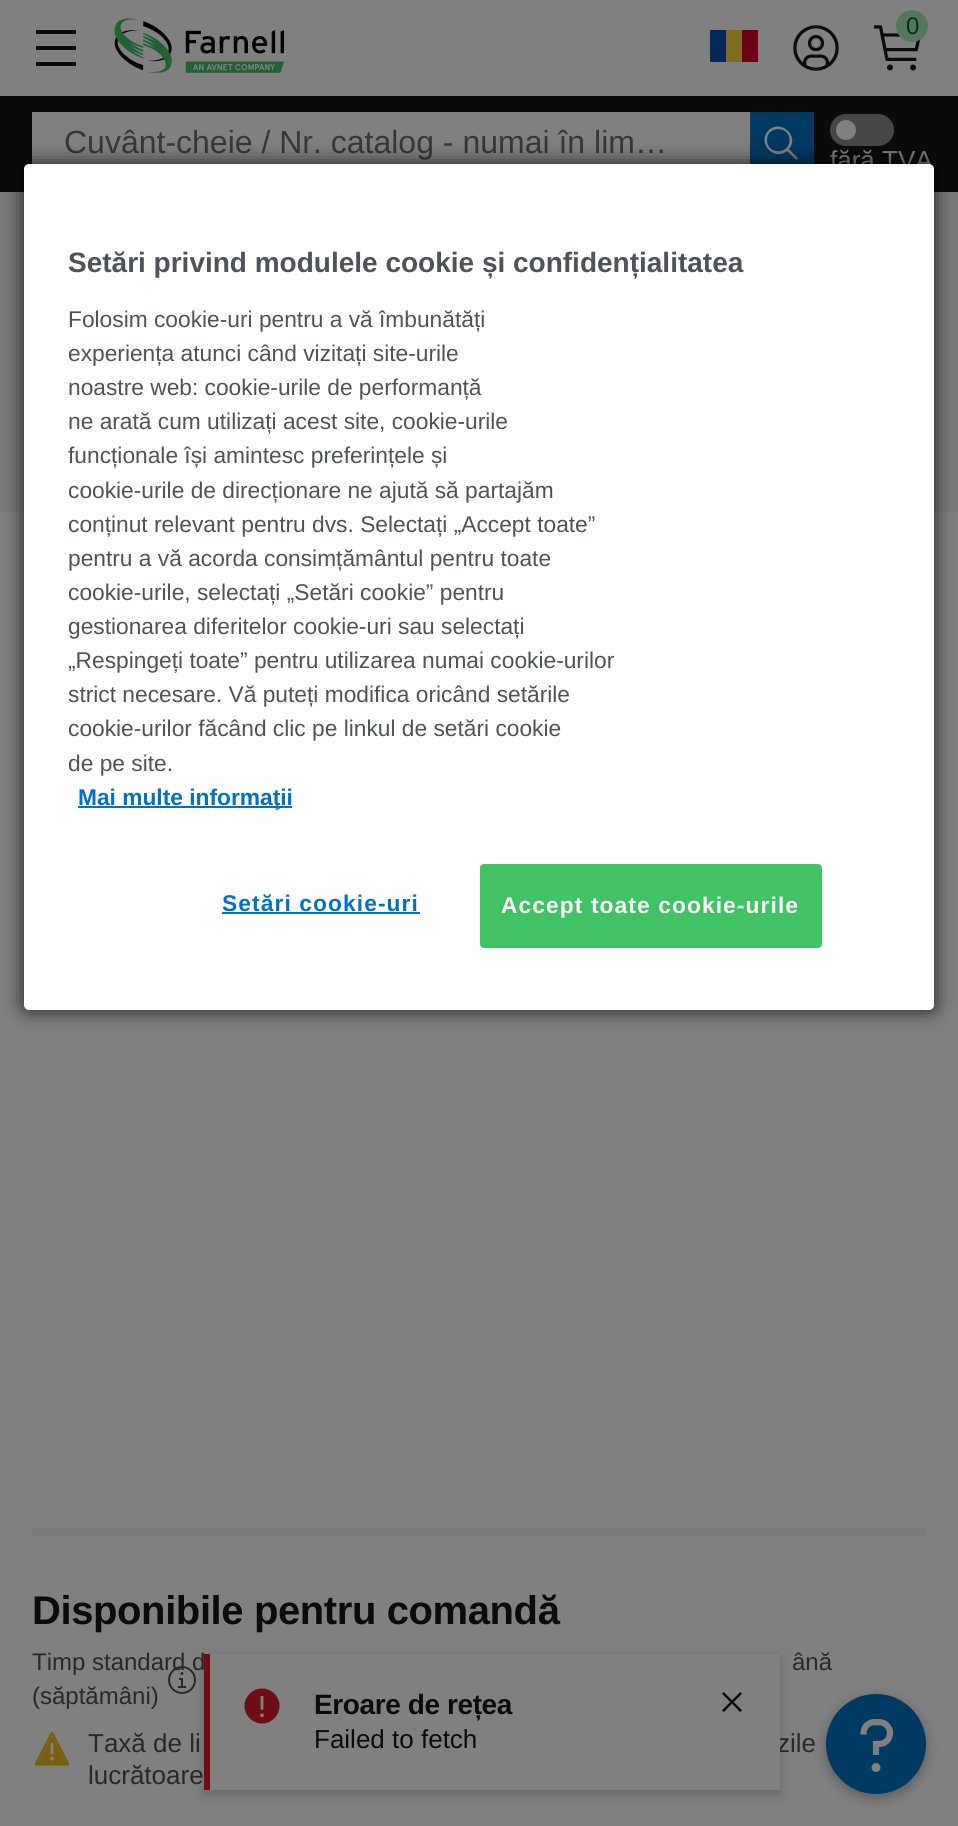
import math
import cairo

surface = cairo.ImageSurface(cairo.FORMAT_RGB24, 958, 1826)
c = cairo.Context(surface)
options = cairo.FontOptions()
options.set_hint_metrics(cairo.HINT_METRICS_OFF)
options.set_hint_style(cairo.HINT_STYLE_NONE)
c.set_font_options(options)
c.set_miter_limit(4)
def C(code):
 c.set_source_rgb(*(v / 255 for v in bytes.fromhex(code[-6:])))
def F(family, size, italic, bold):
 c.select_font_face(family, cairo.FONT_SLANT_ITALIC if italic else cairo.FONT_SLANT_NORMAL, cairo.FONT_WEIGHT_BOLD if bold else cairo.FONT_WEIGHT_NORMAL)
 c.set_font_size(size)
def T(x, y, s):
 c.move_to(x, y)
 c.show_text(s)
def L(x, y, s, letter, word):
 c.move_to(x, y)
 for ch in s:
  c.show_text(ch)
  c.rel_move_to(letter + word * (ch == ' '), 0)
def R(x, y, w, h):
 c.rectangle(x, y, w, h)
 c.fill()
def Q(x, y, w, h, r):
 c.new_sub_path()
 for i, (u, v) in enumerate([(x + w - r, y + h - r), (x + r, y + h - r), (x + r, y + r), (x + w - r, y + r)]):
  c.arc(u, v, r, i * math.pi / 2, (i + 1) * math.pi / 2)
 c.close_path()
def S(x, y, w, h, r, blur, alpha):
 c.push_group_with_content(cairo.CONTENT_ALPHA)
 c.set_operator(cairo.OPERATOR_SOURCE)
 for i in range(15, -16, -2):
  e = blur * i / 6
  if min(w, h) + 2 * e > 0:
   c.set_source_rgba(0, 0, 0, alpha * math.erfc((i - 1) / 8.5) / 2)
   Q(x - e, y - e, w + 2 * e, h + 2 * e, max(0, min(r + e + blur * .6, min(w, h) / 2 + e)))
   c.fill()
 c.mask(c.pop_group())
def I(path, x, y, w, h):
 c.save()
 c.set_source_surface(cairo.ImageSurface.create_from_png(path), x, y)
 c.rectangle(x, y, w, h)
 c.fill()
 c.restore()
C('808080')
c.paint()
C('0b0b0b')
R(36,30,40,4)
R(36,46,40,4)
R(36,62,40,4)
I('1.png',114,18,171,55)
C('00295a')
R(710,30,16,32)
C('806d22')
R(726,30,16,32)
C('6c0014')
R(742,30,16,32)
I('2.png',793,25,46,46)
I('3.png',874,25,47,46)
C('54785d')
c.arc(912,26,16,0,2 * math.pi)
c.fill()
F('Liberation Sans',24,0,0)
C('073014')
T(906,34,'0')
C('0b0b0b')
R(0,96,958,96)
C('808080')
R(32,112,718,52)
F('Liberation Sans',32,0,0)
C('383838')
T(64,153,'Cuvânt-cheie / Nr. catalog - numai în lim…')
C('003962')
R(750,112,64,52)
C('808080')
c.new_path()
c.move_to(798,158.5)
c.line_to(789,149)
c.curve_to(800,136,780.5,118.5,768.5,130.5)
c.curve_to(756.5,142.5,774,162,787,151)
c.line_to(796.5,160)
c.close_path()
c.move_to(767,140)
c.curve_to(767,125.5,789.5,125.5,789.5,140)
c.curve_to(789.5,155,767,155,767,140)
c.close_path()
c.fill()
C('474747')
Q(830,114,64,32,16)
c.fill()
C('808080')
c.arc(846,130,10,0,2 * math.pi)
c.fill()
F('Liberation Sans',26,0,0)
T(830,169,'fără TVA')
C('7a7a7a')
R(0,192,958,320)
R(32,1528,894,8)
F('Liberation Sans',40,0,1)
C('0b0b0b')
L(32,1624,'Disponibile pentru comandă',-.4,0)
F('Liberation Sans',24,0,0)
C('292929')
T(32,1670,'Timp standard d')
T(792,1670,'ână')
I('4.png',168,1666,28,28)
T(32,1704,'(săptămâni)')
I('5.png',34,1731,36,35)
F('Liberation Sans',26,0,0)
T(88,1752,'Taxă de li')
T(777,1752,'zile')
T(88,1784,'lucrătoare')
C('000000')
S(204,1658,576,136,0,6,.2)
C('808080')
R(210,1654,570,136)
C('6d0f14')
R(204,1654,6,136)
I('6.png',244,1688,36,36)
F('Liberation Sans',28,0,1)
C('0b0b0b')
L(314,1714,'Eroare de rețea',-.4,0)
F('Liberation Sans',26,0,0)
T(314,1748,'Failed to fetch')
I('7.png',722,1692,20,20)
C('000000')
S(826,1698,100,100,50,6,.3)
C('003962')
c.arc(876,1744,50,0,2 * math.pi)
c.fill()
I('8.png',860,1719,34,53)
C('000000')
S(24,164,910,846,5,10,.8)
C('ffffff')
Q(24,164,910,846,5)
c.fill()
F('Liberation Sans',28,0,1)
C('4d5358')
T(68,272,'Setări privind modulele cookie și confidențialitatea')
F('Liberation Sans',22.75,0,0)
T(68,327,'Folosim cookie-uri pentru a vă îmbunătăți')
T(68,361,'experiența atunci când vizitați site-urile')
T(68,395,'noastre web: cookie-urile de performanță')
T(68,429,'ne arată cum utilizați acest site, cookie-urile')
T(68,463,'funcționale își amintesc preferințele și')
T(68,498,'cookie-urile de direcționare ne ajută să partajăm')
T(68,532,'conținut relevant pentru dvs. Selectați „Accept toate”')
T(68,566,'pentru a vă acorda consimțământul pentru toate')
T(68,600,'cookie-urile, selectați „Setări cookie” pentru')
T(68,634,'gestionarea diferitelor cookie-uri sau selectați')
T(68,668,'„Respingeți toate” pentru utilizarea numai cookie-urilor')
T(68,702,'strict necesare. Vă puteți modifica oricând setările')
T(68,736,'cookie-urilor făcând clic pe linkul de setări cookie')
T(68,771,'de pe site.')
C('0072c3')
R(78,806,214,2)
F('Liberation Sans',22.75,0,1)
T(78,805,'Mai multe informaţii')
L(222,911,'Setări cookie-uri',1.1,0)
R(222,912,198,2)
C('41c363')
Q(481,865,340,82,3)
c.fill_preserve()
c.stroke()
C('ffffff')
L(501,913,'Accept toate cookie-urile',1.1,0)
surface.write_to_png('o.png')
